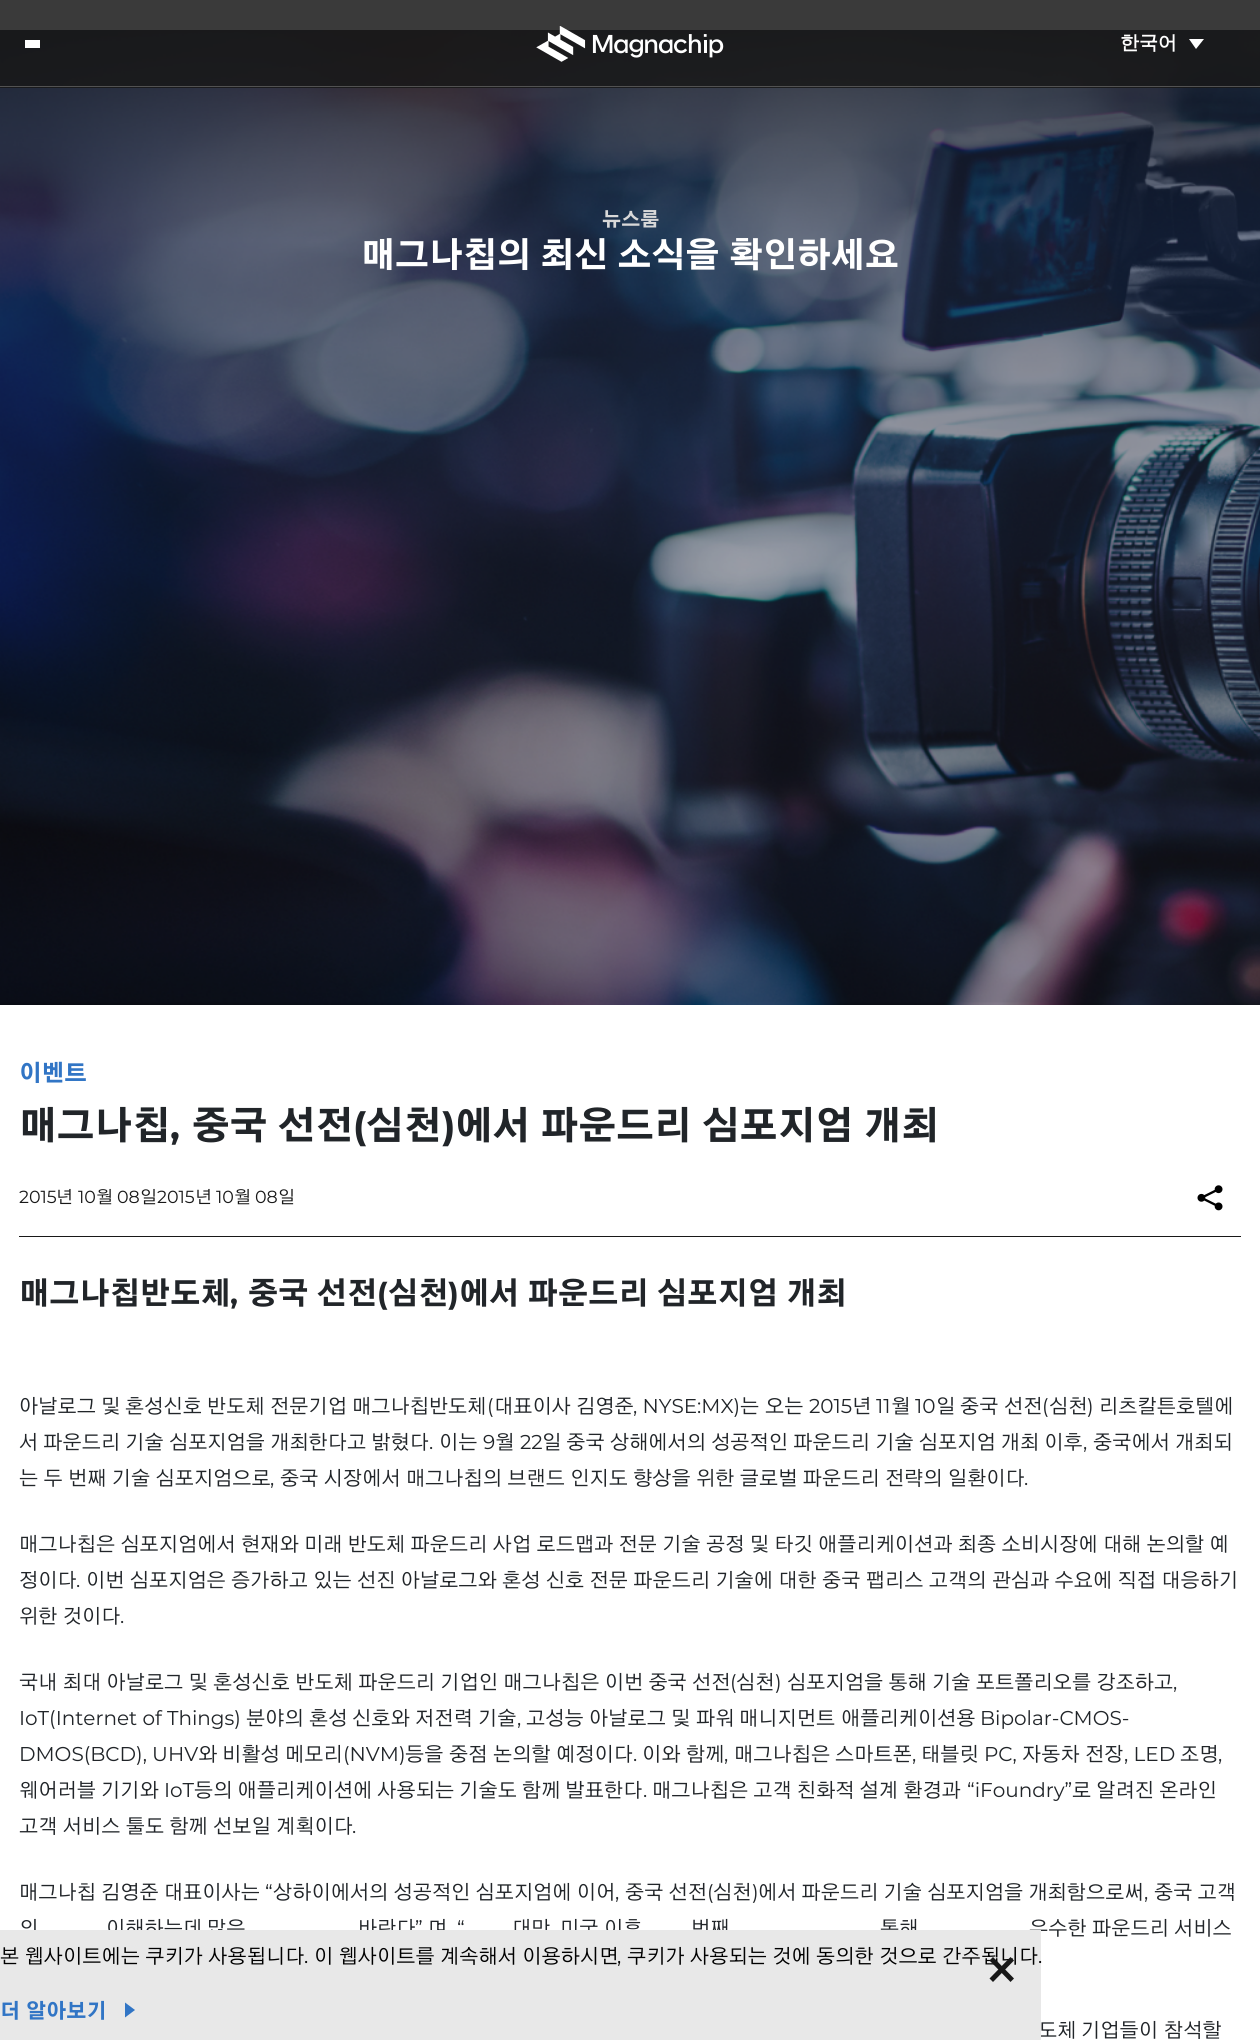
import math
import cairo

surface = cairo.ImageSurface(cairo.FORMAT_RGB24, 1260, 2040)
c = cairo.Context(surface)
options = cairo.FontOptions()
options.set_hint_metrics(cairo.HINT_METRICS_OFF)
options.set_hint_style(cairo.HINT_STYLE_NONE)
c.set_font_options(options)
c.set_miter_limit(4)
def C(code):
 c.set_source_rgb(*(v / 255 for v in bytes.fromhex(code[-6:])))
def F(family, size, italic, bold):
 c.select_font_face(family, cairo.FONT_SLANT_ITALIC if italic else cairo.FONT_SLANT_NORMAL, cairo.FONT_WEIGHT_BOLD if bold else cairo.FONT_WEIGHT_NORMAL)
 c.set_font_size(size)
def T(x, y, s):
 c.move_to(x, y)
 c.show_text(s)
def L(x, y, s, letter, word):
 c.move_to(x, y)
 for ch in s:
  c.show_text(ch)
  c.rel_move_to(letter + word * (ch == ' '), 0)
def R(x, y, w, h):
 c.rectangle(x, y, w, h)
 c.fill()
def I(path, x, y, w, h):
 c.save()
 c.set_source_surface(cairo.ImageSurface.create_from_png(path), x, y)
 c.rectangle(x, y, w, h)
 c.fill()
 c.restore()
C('ffffff')
c.paint()
I('2.png',0,30,1260,975)
c.set_source_rgba(0.094,0.094,0.094,0.85)
R(0,0,1260,88)
C('525252')
R(0,86,1260,1)
C('ffffff')
R(25,40,15,8)
I('1.png',536,26,188,36)
F('WenQuanYi Zen Hei',19,0,1)
T(1120,49,'한국어')
c.new_path()
c.move_to(1189,39)
c.line_to(1204,39)
c.line_to(1196,49)
c.close_path()
c.fill()
F('Gothic A1 ExtraBold',19,0,0)
C('d8d8d8')
T(602,226,'뉴스룸')
F('Gothic A1 ExtraBold',33.75,0,0)
C('ffffff')
L(361,267,'매그나칩의 최신 소식을 확인하세요',0,1)
C('181818')
R(19,1236,1222,1)
F('Gothic A1 ExtraBold',22.5,0,0)
C('3175c5')
T(19,1081,'이벤트')
F('Gothic A1 ExtraBold',37.5,0,0)
C('212529')
T(19,1139,'매그나칩')
F('Montserrat',37.5,0,1)
T(170,1139,',')
F('Gothic A1 ExtraBold',37.5,0,0)
L(192,1139,'중국 선전',0,1)
F('Montserrat',37.5,0,1)
T(353,1139,'(')
F('Gothic A1 ExtraBold',37.5,0,0)
T(366,1139,'심천')
F('Montserrat',37.5,0,1)
T(442,1139,')')
F('Gothic A1 ExtraBold',37.5,0,0)
L(455,1139,'에서 파운드리 심포지엄 개최',0,1)
F('Montserrat',17.5,0,0)
C('181818')
T(19,1203,'2015')
F('Gothic A1',17.5,0,0)
T(56,1203,'년')
F('Montserrat',17.5,0,0)
T(78,1203,'10')
F('Gothic A1',17.5,0,0)
T(96,1203,'월')
F('Montserrat',17.5,0,0)
T(117,1203,'08')
F('Gothic A1',17.5,0,0)
T(140,1203,'일')
F('Montserrat',17.5,0,0)
T(157,1203,'2015')
F('Gothic A1',17.5,0,0)
T(195,1203,'년')
F('Montserrat',17.5,0,0)
T(216,1203,'10')
F('Gothic A1',17.5,0,0)
T(234,1203,'월')
F('Montserrat',17.5,0,0)
T(255,1203,'08')
F('Gothic A1',17.5,0,0)
T(278,1203,'일')
I('3.png',1197,1185,26,26)
F('Gothic A1 ExtraBold',30,0,0)
C('212529')
T(19,1304,'매그나칩반도체')
F('Montserrat',30,0,1)
T(230,1304,',')
F('Gothic A1 ExtraBold',30,0,0)
L(248,1304,'중국 선전',0,1)
F('Montserrat',30,0,1)
T(377,1304,'(')
F('Gothic A1 ExtraBold',30,0,0)
T(388,1304,'심천')
F('Montserrat',30,0,1)
T(448,1304,')')
F('Gothic A1 ExtraBold',30,0,0)
L(459,1304,'에서 파운드리 심포지엄 개최',0,1)
F('Gothic A1',20,0,0)
T(19,1413,'아날로그')
T(101,1413,'및')
T(125,1413,'혼성신호')
T(207,1413,'반도체')
T(270,1413,'전문기업')
T(352,1413,'매그나칩반도체')
F('Montserrat',20,0,0)
T(487,1413,'(')
F('Gothic A1',20,0,0)
T(494,1413,'대표이사')
T(576,1413,'김영준')
F('Montserrat',20,0,0)
T(633,1413,', NYSE:MX)')
F('Gothic A1',20,0,0)
T(740,1413,'는')
T(765,1413,'오는')
F('Montserrat',20,0,0)
T(809,1413,'2015')
F('Gothic A1',20,0,0)
T(852,1413,'년')
F('Montserrat',20,0,0)
T(876,1413,'11')
F('Gothic A1',20,0,0)
T(891,1413,'월')
F('Montserrat',20,0,0)
T(915,1413,'10')
F('Gothic A1',20,0,0)
T(936,1413,'일')
T(960,1413,'중국')
T(1004,1413,'선전')
F('Montserrat',20,0,0)
T(1042,1413,'(')
F('Gothic A1',20,0,0)
T(1049,1413,'심천')
F('Montserrat',20,0,0)
T(1087,1413,')')
F('Gothic A1',20,0,0)
T(1099,1413,'리츠칼튼호텔에')
L(19,1449,'서 파운드리 기술 심포지엄을 개최한다고 밝혔다',0,.25)
F('Montserrat',20,0,0)
T(429,1449,'.')
F('Gothic A1',20,0,0)
T(439,1449,'이는')
F('Montserrat',20,0,0)
T(483,1449,'9')
F('Gothic A1',20,0,0)
T(495,1449,'월')
F('Montserrat',20,0,0)
T(520,1449,'22')
F('Gothic A1',20,0,0)
L(542,1449,'일 중국 상해에서의 성공적인 파운드리 기술 심포지엄 개최 이후',0,.25)
F('Montserrat',20,0,0)
T(1083,1449,',')
F('Gothic A1',20,0,0)
L(1093,1449,'중국에서 개최되',0,.25)
L(19,1485,'는 두 번째 기술 심포지엄으로',0,.4)
F('Montserrat',20,0,0)
T(270,1485,',')
F('Gothic A1',20,0,0)
L(280,1485,'중국 시장에서 매그나칩의 브랜드 인지도 향상을 위한 글로벌 파운드리 전략의 일환이다',0,.4)
F('Montserrat',20,0,0)
T(1024,1485,'.')
F('Gothic A1',20,0,0)
L(19,1551,'매그나칩은 심포지엄에서 현재와 미래 반도체 파운드리 사업 로드맵과 전문 기술 공정 및 타깃 애플리케이션과 최종 소비시장에 대해 논의할 예',0,.4)
T(19,1587,'정이다')
F('Montserrat',20,0,0)
T(76,1587,'.')
F('Gothic A1',20,0,0)
L(86,1587,'이번 심포지엄은 증가하고 있는 선진 아날로그와 혼성 신호 전문 파운드리 기술에 대한 중국 팹리스 고객의 관심과 수요에 직접 대응하기',0,.4)
L(19,1623,'위한 것이다',0,.4)
F('Montserrat',20,0,0)
T(120,1623,'.')
F('Gothic A1',20,0,0)
L(19,1689,'국내 최대 아날로그 및 혼성신호 반도체 파운드리 기업인 매그나칩은 이번 중국 선전',0,.4)
F('Montserrat',20,0,0)
T(730,1689,'(')
F('Gothic A1',20,0,0)
T(736,1689,'심천')
F('Montserrat',20,0,0)
T(775,1689,')')
F('Gothic A1',20,0,0)
L(787,1689,'심포지엄을 통해 기술 포트폴리오를 강조하고',0,.4)
F('Montserrat',20,0,0)
T(1173,1689,',')
T(19,1725,'IoT(Internet of Things)')
F('Gothic A1',20,0,0)
T(246,1725,'분야의')
T(309,1725,'혼성')
T(352,1725,'신호와')
T(415,1725,'저전력')
T(478,1725,'기술')
F('Montserrat',20,0,0)
T(517,1725,',')
F('Gothic A1',20,0,0)
T(526,1725,'고성능')
T(589,1725,'아날로그')
T(671,1725,'및')
T(696,1725,'파워')
T(739,1725,'매니지먼트')
T(841,1725,'애플리케이션용')
F('Montserrat',20,0,0)
T(980,1725,'Bipolar-CMOS-')
T(19,1761,'DMOS(BCD), UHV')
F('Gothic A1',20,0,0)
T(198,1761,'와')
T(222,1761,'비활성')
T(285,1761,'메모리')
F('Montserrat',20,0,0)
T(343,1761,'(NVM)')
F('Gothic A1',20,0,0)
T(405,1761,'등을')
T(449,1761,'중점')
T(493,1761,'논의할')
T(556,1761,'예정이다')
F('Montserrat',20,0,0)
T(633,1761,'.')
F('Gothic A1',20,0,0)
T(642,1761,'이와')
T(686,1761,'함께')
F('Montserrat',20,0,0)
T(724,1761,',')
F('Gothic A1',20,0,0)
T(734,1761,'매그나칩은')
T(835,1761,'스마트폰')
F('Montserrat',20,0,0)
T(912,1761,',')
F('Gothic A1',20,0,0)
T(921,1761,'태블릿')
F('Montserrat',20,0,0)
T(984,1761,'PC,')
F('Gothic A1',20,0,0)
T(1022,1761,'자동차')
T(1085,1761,'전장')
F('Montserrat',20,0,0)
T(1124,1761,', LED')
F('Gothic A1',20,0,0)
T(1180,1761,'조명')
F('Montserrat',20,0,0)
T(1218,1761,',')
F('Gothic A1',20,0,0)
L(19,1797,'웨어러블 기기와',0,.25)
F('Montserrat',20,0,0)
T(164,1797,'IoT')
F('Gothic A1',20,0,0)
L(194,1797,'등의 애플리케이션에 사용되는 기술도 함께 발표한다',0,.25)
F('Montserrat',20,0,0)
T(643,1797,'.')
F('Gothic A1',20,0,0)
L(652,1797,'매그나칩은 고객 친화적 설계 환경과',0,.25)
F('Montserrat',20,0,0)
T(967,1797,'“iFoundry”')
F('Gothic A1',20,0,0)
L(1072,1797,'로 알려진 온라인',0,.25)
L(19,1833,'고객 서비스 툴도 함께 선보일 계획이다',0,.4)
F('Montserrat',20,0,0)
T(352,1833,'.')
F('Gothic A1',20,0,0)
L(19,1899,'매그나칩 김영준 대표이사는',0,.25)
F('Montserrat',20,0,0)
T(265,1899,'“')
F('Gothic A1',20,0,0)
L(273,1899,'상하이에서의 성공적인 심포지엄에 이어',0,.25)
F('Montserrat',20,0,0)
T(615,1899,',')
F('Gothic A1',20,0,0)
L(625,1899,'중국 선전',0,.25)
F('Montserrat',20,0,0)
T(707,1899,'(')
F('Gothic A1',20,0,0)
T(713,1899,'심천')
F('Montserrat',20,0,0)
T(752,1899,')')
F('Gothic A1',20,0,0)
L(758,1899,'에서 파운드리 기술 심포지엄을 개최함으로써',0,.25)
F('Montserrat',20,0,0)
T(1144,1899,',')
F('Gothic A1',20,0,0)
L(1154,1899,'중국 고객',0,.25)
T(19,1935,'의')
T(106,1935,'이해하는데')
T(207,1935,'많은')
T(358,1935,'바란다')
F('Montserrat',20,0,0)
T(415,1935,'”')
F('Gothic A1',20,0,0)
T(428,1935,'며')
F('Montserrat',20,0,0)
T(457,1935,'“')
F('Gothic A1',20,0,0)
T(512,1935,'대만')
T(560,1935,'미국')
T(604,1935,'이후')
T(691,1935,'번째')
T(880,1935,'통해')
T(1029,1935,'우수한')
T(1092,1935,'파운드리')
T(1174,1935,'서비스')
T(1038,2037,'도체')
T(1081,2037,'기업들이')
T(1164,2037,'참석할')
C('e8e8e8')
R(0,1930,1041,110)
C('000000')
L(0,1963,'본 웹사이트에는 쿠키가 사용됩니다',0,.5)
F('Montserrat',20,0,0)
T(304,1963,'.')
F('Gothic A1',20,0,0)
L(314,1963,'이 웹사이트를 계속해서 이용하시면',0,.5)
F('Montserrat',20,0,0)
T(617,1963,',')
F('Gothic A1',20,0,0)
L(627,1963,'쿠키가 사용되는 것에 동의한 것으로 간주됩니다',0,.5)
F('Montserrat',20,0,0)
T(1038,1963,'.')
C('181818')
c.new_path()
c.move_to(989.5,1960.5)
c.line_to(993,1957)
c.line_to(1014,1978.5)
c.line_to(1010.5,1982)
c.close_path()
c.fill()
c.new_path()
c.move_to(1010.5,1957)
c.line_to(1014,1960.5)
c.line_to(993,1982)
c.line_to(989.5,1978.5)
c.close_path()
c.fill()
F('Gothic A1 ExtraBold',20,0,0)
C('3175c5')
L(0,2018,'더 알아보기',0,1)
c.new_path()
c.move_to(125,2017.5)
c.line_to(125,2002.5)
c.line_to(135,2010)
c.close_path()
c.fill()
surface.write_to_png('o.png')
